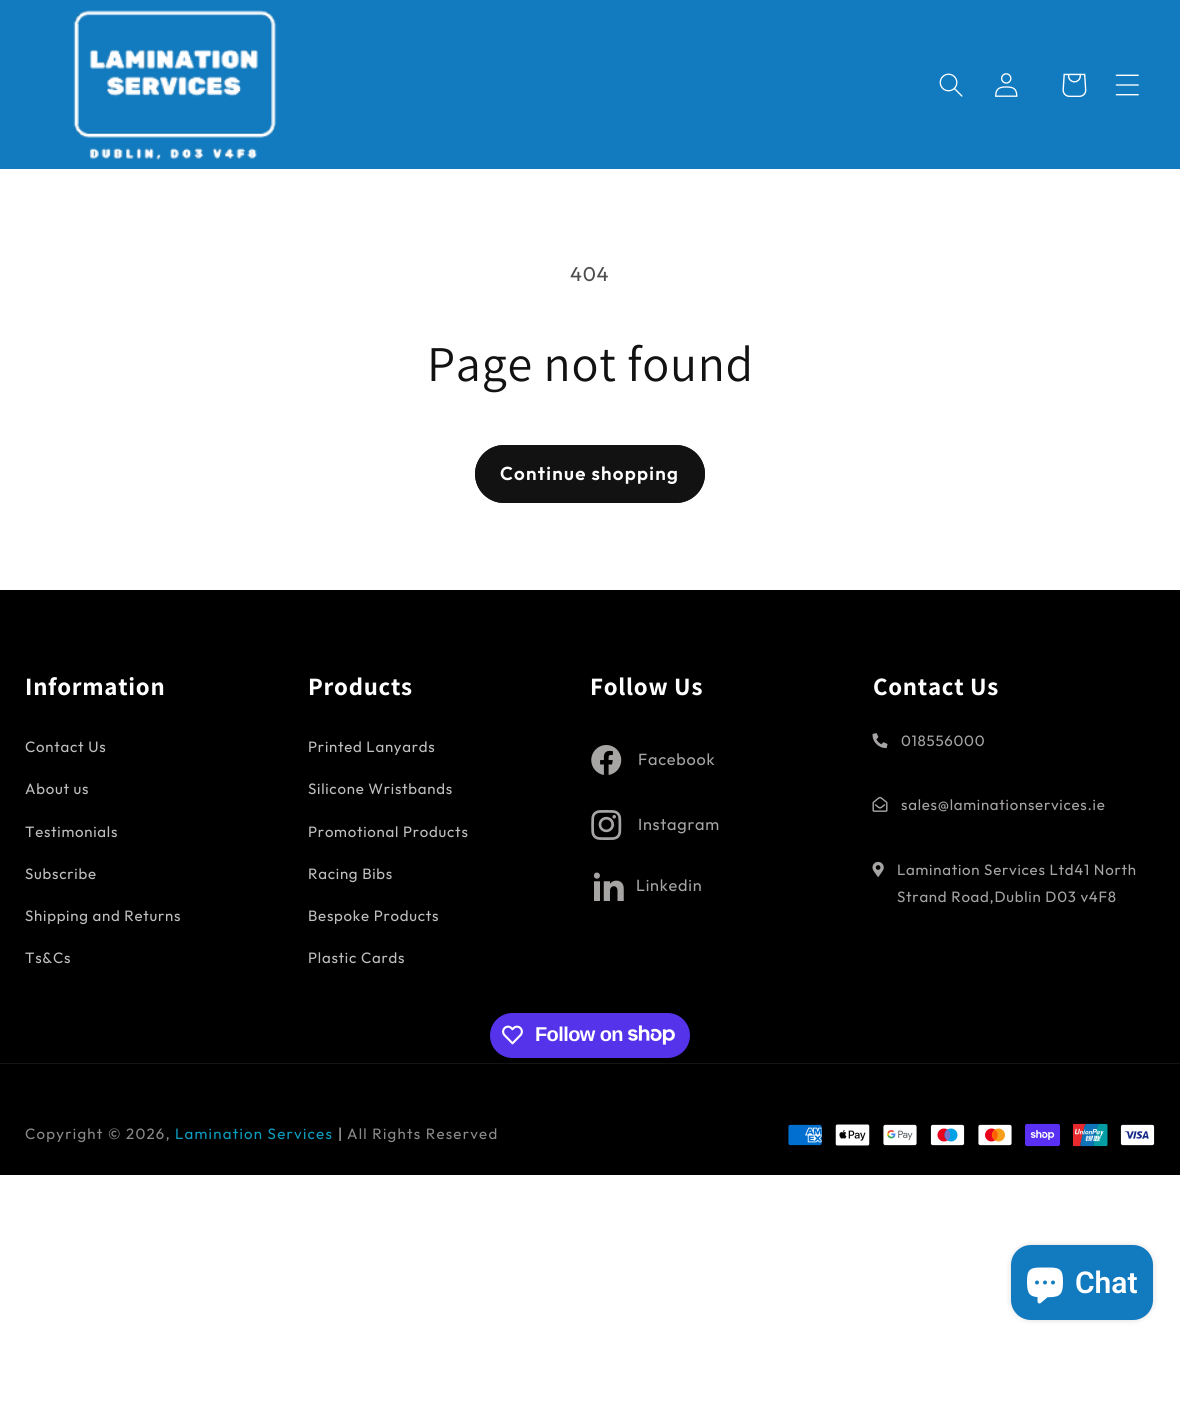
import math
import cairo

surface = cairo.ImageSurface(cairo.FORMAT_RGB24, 1180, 1426)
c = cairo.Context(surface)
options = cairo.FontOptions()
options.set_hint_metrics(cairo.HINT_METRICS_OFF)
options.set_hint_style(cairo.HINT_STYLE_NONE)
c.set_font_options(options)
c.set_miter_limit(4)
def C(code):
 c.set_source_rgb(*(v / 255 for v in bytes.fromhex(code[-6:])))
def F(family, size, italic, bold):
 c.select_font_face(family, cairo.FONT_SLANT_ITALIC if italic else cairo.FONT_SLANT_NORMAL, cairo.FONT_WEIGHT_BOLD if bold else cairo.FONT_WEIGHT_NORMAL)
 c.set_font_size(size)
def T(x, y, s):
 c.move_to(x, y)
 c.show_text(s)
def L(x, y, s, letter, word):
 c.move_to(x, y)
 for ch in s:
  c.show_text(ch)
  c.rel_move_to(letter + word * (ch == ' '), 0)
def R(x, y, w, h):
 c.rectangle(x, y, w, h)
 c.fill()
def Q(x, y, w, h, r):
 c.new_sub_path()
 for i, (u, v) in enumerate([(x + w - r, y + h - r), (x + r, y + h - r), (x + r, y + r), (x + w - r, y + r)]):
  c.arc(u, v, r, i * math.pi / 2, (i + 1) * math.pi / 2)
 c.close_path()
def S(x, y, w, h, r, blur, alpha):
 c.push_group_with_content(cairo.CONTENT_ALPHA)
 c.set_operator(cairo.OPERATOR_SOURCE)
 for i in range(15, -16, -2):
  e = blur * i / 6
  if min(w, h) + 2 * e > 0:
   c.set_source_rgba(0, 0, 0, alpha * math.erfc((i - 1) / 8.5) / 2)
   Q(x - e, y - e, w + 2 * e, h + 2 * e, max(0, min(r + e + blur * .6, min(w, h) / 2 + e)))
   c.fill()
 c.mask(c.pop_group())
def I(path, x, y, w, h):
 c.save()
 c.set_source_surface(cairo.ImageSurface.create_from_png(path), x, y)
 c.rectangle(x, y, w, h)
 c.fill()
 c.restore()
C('ffffff')
c.paint()
C('127bbf')
R(0,0,1180,169)
I('1.png',73,10,204,150)
I('2.png',939,73,24,24)
I('3.png',995,73,23,24)
I('4.png',1062,73,25,24)
I('5.png',1115,74,24,22)
F('Outfit',20,0,0)
C('4d4d4d')
L(570,281,'404',.75,0)
F('Assistant',50,0,0)
C('121212')
L(427,381,'Page not found',.75,0)
Q(475,445,230,58,29)
c.fill()
Q(475.5,445.5,229,57,28.5)
c.set_line_width(1)
c.stroke()
F('Outfit SemiBold',18.75,0,0)
C('ffffff')
L(500,480,'Continue shopping',1.25,0)
C('000000')
R(0,590,1180,585)
F('Assistant',25,0,1)
C('ffffff')
L(25,695,'Information',.75,0)
F('Outfit',15,0,0)
C('bfbfbf')
L(25,752,'Contact Us',.75,0)
L(25,794,'About us',.75,0)
L(25,837,'Testimonials',.75,0)
L(25,879,'Subscribe',.75,0)
L(25,921,'Shipping and Returns',.75,0)
L(25,963,'Ts&Cs',.75,0)
F('Assistant',25,0,1)
C('ffffff')
L(308,695,'Products',.75,0)
F('Outfit',15,0,0)
C('bfbfbf')
L(308,752,'Printed Lanyards',.75,0)
L(308,794,'Silicone Wristbands',.75,0)
L(308,837,'Promotional Products',.75,0)
L(308,879,'Racing Bibs',.75,0)
L(308,921,'Bespoke Products',.75,0)
L(308,963,'Plastic Cards',.75,0)
F('Assistant',25,0,1)
C('ffffff')
L(590,695,'Follow Us',.75,0)
I('6.png',591,745,31,30)
F('Outfit',16.25,0,0)
C('a7a4a4')
L(638,765,'Facebook',.75,0)
I('7.png',591,810,31,30)
L(638,830,'Instagram',.75,0)
I('8.png',594,872,30,29)
L(636,891,'Linkedin',.75,0)
F('Assistant',25,0,1)
C('ffffff')
L(873,695,'Contact Us',.75,0)
I('9.png',872,733,16,16)
F('Outfit',15,0,0)
C('a7a4a4')
L(901,746,'018556000',.75,0)
I('10.png',872,796,16,16)
L(901,810,'sales@laminationservices.ie',.75,0)
I('11.png',872,861,12,16)
L(897,875,'Lamination Services Ltd41 North',.75,0)
L(897,902,'Strand Road,Dublin D03 v4F8',.75,0)
C('5433eb')
Q(490,1013,200,45,22.5)
c.fill()
I('12.png',502,1025,21,20)
F('Liberation Sans',20,0,1)
C('ffffff')
L(535,1041,'Follow on',-.6,0)
I('13.png',628,1025,47,20)
C('141414')
R(0,1063,1180,1)
F('Outfit',15,0,0)
C('8a8a8a')
L(25,1139,'Copyright © 2026,',1.25,0)
C('0b9cbd')
L(175,1139,'Lamination Services',1.25,0)
C('bfbfbf')
L(338,1139,'|',1,0)
C('8a8a8a')
L(347,1139,'All Rights Reserved',1.25,0)
I('14.png',788,1124,34,22)
I('15.png',835,1124,35,22)
I('16.png',883,1124,34,22)
I('17.png',930,1124,35,22)
I('18.png',978,1124,34,22)
I('19.png',1025,1123,35,24)
I('20.png',1073,1123,35,24)
I('21.png',1120,1124,35,22)
C('000000')
S(1011,1245,142,75,20,3,.15)
C('127bbf')
Q(1011,1245,142,75,20)
c.fill()
I('22.png',1027,1267,36,37)
F('Roboto SemiBold',30,0,0)
C('ffffff')
T(1075,1293,'Chat')
surface.write_to_png('o.png')
